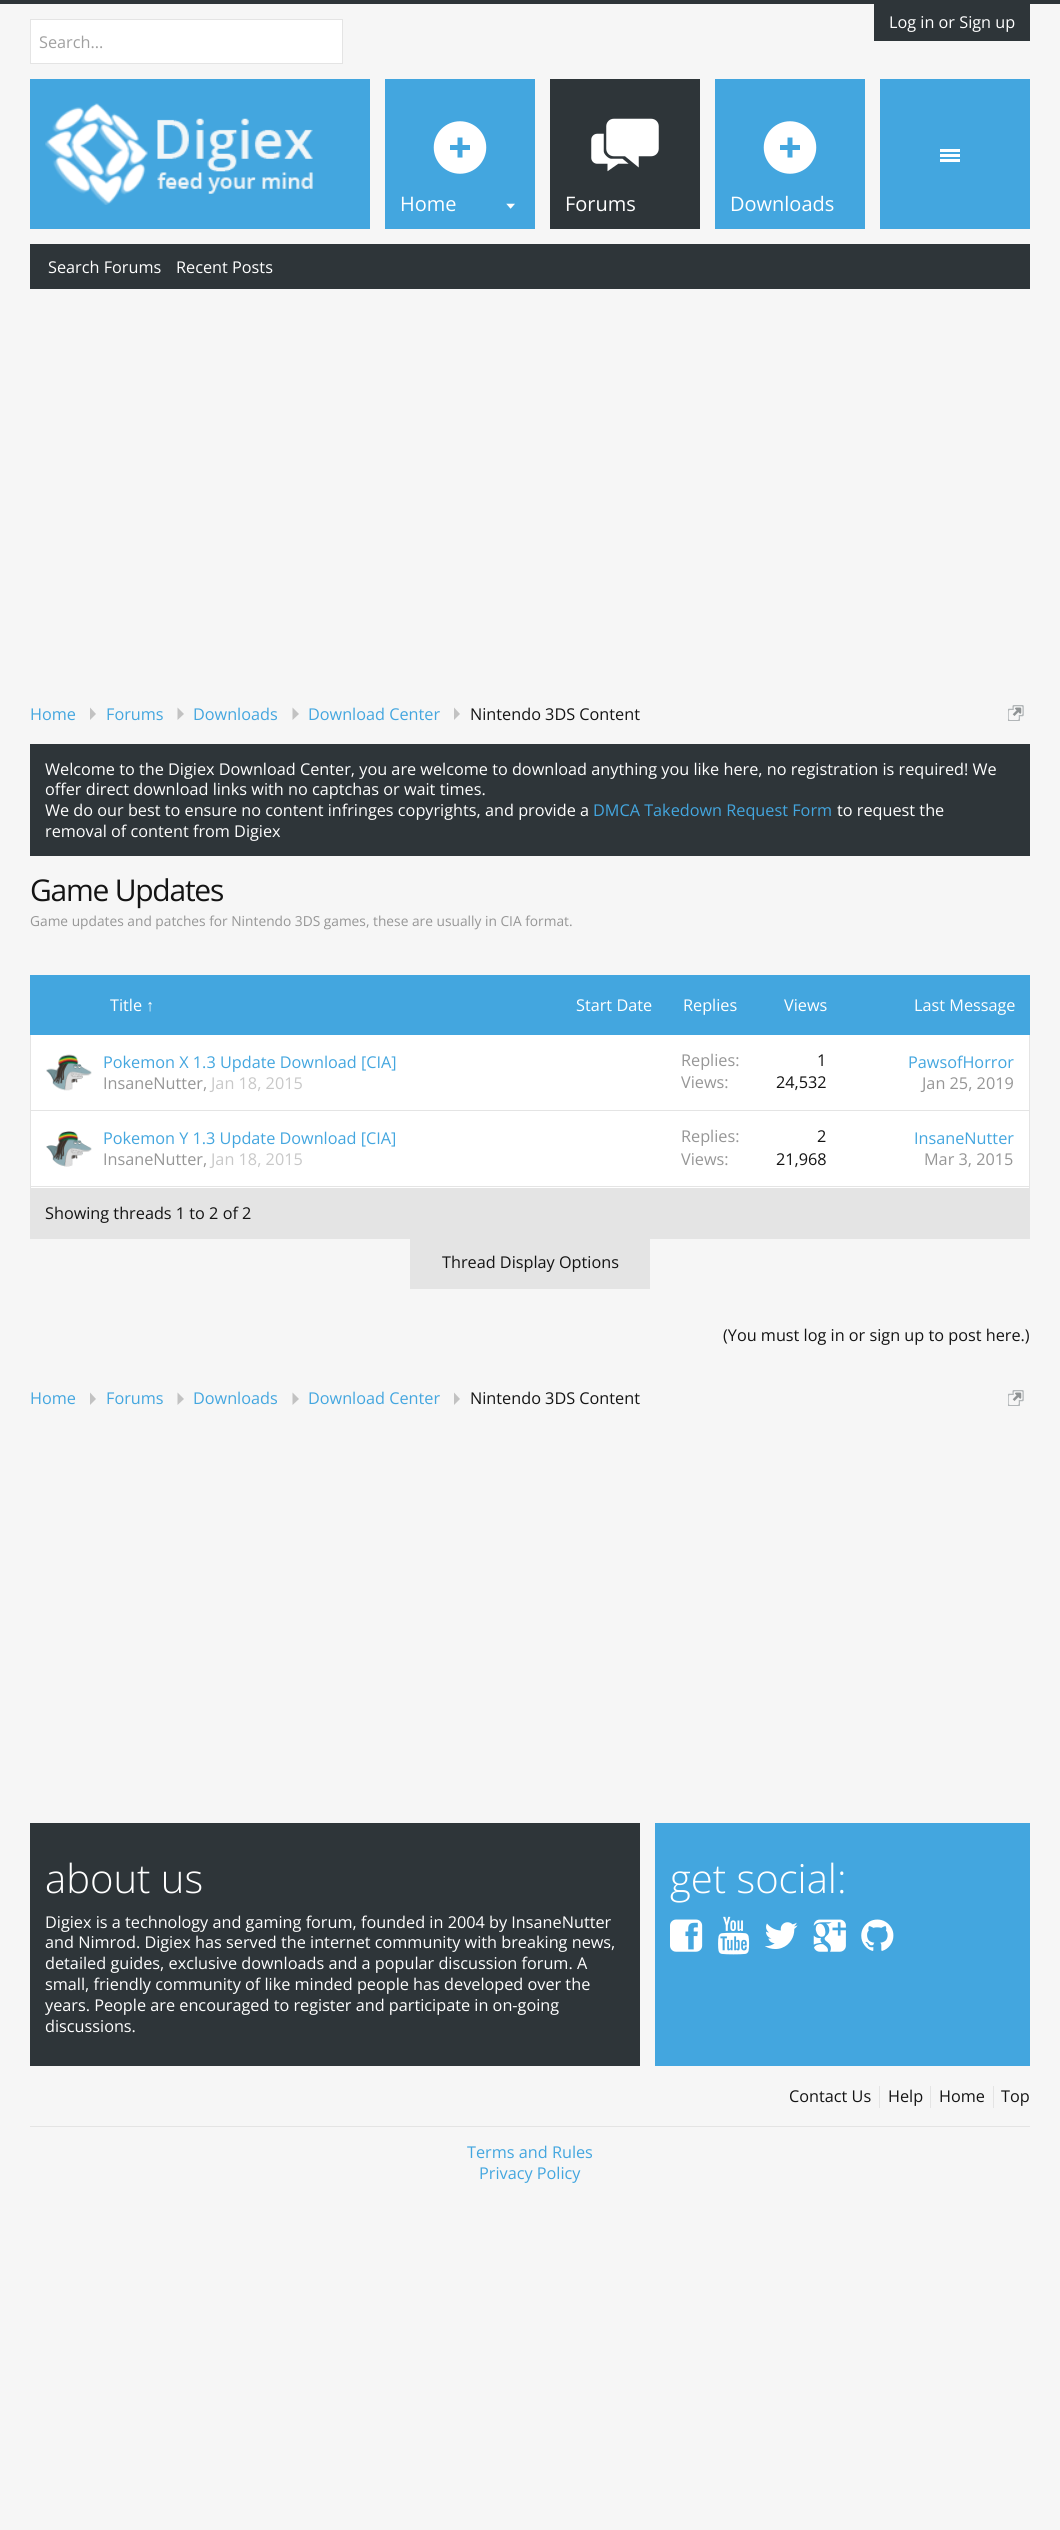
import math
import cairo

surface = cairo.ImageSurface(cairo.FORMAT_RGB24, 1060, 2530)
c = cairo.Context(surface)
options = cairo.FontOptions()
options.set_hint_metrics(cairo.HINT_METRICS_OFF)
options.set_hint_style(cairo.HINT_STYLE_NONE)
c.set_font_options(options)
c.set_miter_limit(4)
def C(code):
 c.set_source_rgb(*(v / 255 for v in bytes.fromhex(code[-6:])))
def F(family, size, italic, bold):
 c.select_font_face(family, cairo.FONT_SLANT_ITALIC if italic else cairo.FONT_SLANT_NORMAL, cairo.FONT_WEIGHT_BOLD if bold else cairo.FONT_WEIGHT_NORMAL)
 c.set_font_size(size)
def T(x, y, s):
 c.move_to(x, y)
 c.show_text(s)
def L(x, y, s, letter, word):
 c.move_to(x, y)
 for ch in s:
  c.show_text(ch)
  c.rel_move_to(letter + word * (ch == ' '), 0)
def R(x, y, w, h):
 c.rectangle(x, y, w, h)
 c.fill()
def I(path, x, y, w, h):
 c.save()
 c.set_source_surface(cairo.ImageSurface.create_from_png(path), x, y)
 c.rectangle(x, y, w, h)
 c.fill()
 c.restore()
C('f6f6f6')
c.paint()
C('2e3539')
R(0,0,1060,4)
R(874,4,156,37)
F('Open Sans',16.25,0,0)
C('ffffff')
T(889,28,'Log in or Sign up')
c.rectangle(30.5,19.5,312,44)
c.fill_preserve()
C('e4e4e4')
c.set_line_width(1)
c.stroke()
C('a0a0a0')
T(39,48,'Search...')
C('43a6df')
R(30,79,1000,150)
I('1.png',45,103,268,102)
C('2e3539')
R(550,79,150,150)
I('2.png',591,118,68,54)
C('f6f6f6')
R(535,79,15,150)
F('Open Sans',20,0,0)
C('ffffff')
T(565,211,'Forums')
C('2e3539')
R(30,244,1000,45)
F('Open Sans',16.25,0,0)
C('ffffff')
T(48,273,'Search Forums')
T(176,273,'Recent Posts')
I('3.png',763,121,54,53)
C('f6f6f6')
R(700,79,15,150)
F('Open Sans',20,0,0)
C('ffffff')
T(730,211,'Downloads')
C('f6f6f6')
R(865,79,15,150)
C('ffffff')
R(940,149,20,3)
R(940,154,20,3)
R(940,159,20,3)
I('3.png',433,121,54,53)
C('f6f6f6')
R(370,79,15,150)
C('ffffff')
T(400,211,'Home')
I('4.png',506,203,9,6)
F('Open Sans',16.25,0,0)
C('43a6df')
T(30,720,'Home')
C('c2c2c2')
c.new_path()
c.move_to(90,720)
c.line_to(90,707.5)
c.line_to(96,714)
c.close_path()
c.fill()
C('43a6df')
T(106,720,'Forums')
C('c2c2c2')
c.new_path()
c.move_to(177.5,720)
c.line_to(177.5,707.5)
c.line_to(184,714)
c.close_path()
c.fill()
C('43a6df')
T(193,720,'Downloads')
C('c2c2c2')
c.new_path()
c.move_to(292.5,720)
c.line_to(292.5,707.5)
c.line_to(299,714)
c.close_path()
c.fill()
C('43a6df')
T(308,720,'Download Center')
C('c2c2c2')
c.new_path()
c.move_to(454,720)
c.line_to(454,707.5)
c.line_to(460,714)
c.close_path()
c.fill()
C('141414')
T(470,720,'Nintendo 3DS Content')
I('5.png',1008,705,16,16)
C('2e3539')
R(30,744,1000,112)
C('ffffff')
T(45,775,'Welcome to the Digiex Download Center, you are welcome to download anything you like here, no registration is required! We')
T(45,795,'offer direct download links with no captchas or wait times.')
T(45,816,'We do our best to ensure no content infringes copyrights, and provide a')
C('43a6df')
T(593,816,'DMCA Takedown Request Form')
C('ffffff')
T(837,816,'to request the')
T(45,837,'removal of content from Digiex')
F('Open Sans',30,0,0)
C('141414')
L(30,901,'Game Updates',-1.25,0)
F('Open Sans',13.75,0,0)
C('969696')
T(30,926,'Game updates and patches for Nintendo 3DS games, these are usually in CIA format.')
C('43a6df')
R(30,975,1000,60)
F('Open Sans',16.25,0,0)
C('ffffff')
T(110,1011,'Title')
F('Liberation Sans',16.25,0,0)
T(146,1011,'↑')
F('Open Sans',16.25,0,0)
T(576,1011,'Start Date')
T(683,1011,'Replies')
T(784,1011,'Views')
T(914,1011,'Last Message')
R(31,1035,998,75)
C('e4e4e4')
R(1029,1035,1,153)
R(30,1110,1000,1)
R(30,1035,1,76)
I('6.png',46,1054,46,37)
C('43a6df')
T(103,1068,'Pokemon X 1.3 Update Download [CIA]')
C('969696')
T(103,1089,'InsaneNutter,')
C('c8c8c8')
T(211,1089,'Jan 18, 2015')
C('969696')
T(681,1066,'Replies:')
C('141414')
T(817,1066,'1')
C('969696')
T(681,1088,'Views:')
C('141414')
T(776,1088,'24,532')
C('43a6df')
T(908,1068,'PawsofHorror')
C('969696')
T(922,1089,'Jan 25, 2019')
C('ffffff')
R(31,1111,998,77)
C('e4e4e4')
R(30,1186,1000,1)
R(30,1111,1,77)
I('7.png',46,1131,46,36)
C('43a6df')
T(103,1144,'Pokemon Y 1.3 Update Download [CIA]')
C('969696')
T(103,1165,'InsaneNutter,')
C('c8c8c8')
T(211,1165,'Jan 18, 2015')
C('969696')
T(681,1142,'Replies:')
C('141414')
T(817,1142,'2')
C('969696')
T(681,1165,'Views:')
C('141414')
T(776,1165,'21,968')
C('43a6df')
T(914,1144,'InsaneNutter')
C('969696')
T(924,1165,'Mar 3, 2015')
C('e4e4e4')
R(30,1188,1000,51)
C('141414')
T(45,1219,'Showing threads 1 to 2 of 2')
C('e4e4e4')
R(410,1239,240,50)
C('141414')
T(442,1268,'Thread Display Options')
T(723,1341,'(You must log in or sign up to post here.)')
C('43a6df')
T(30,1404,'Home')
C('c2c2c2')
c.new_path()
c.move_to(90,1405)
c.line_to(90,1392.5)
c.line_to(96,1399)
c.close_path()
c.fill()
C('43a6df')
T(106,1404,'Forums')
C('c2c2c2')
c.new_path()
c.move_to(177.5,1405)
c.line_to(177.5,1392.5)
c.line_to(184,1399)
c.close_path()
c.fill()
C('43a6df')
T(193,1404,'Downloads')
C('c2c2c2')
c.new_path()
c.move_to(292.5,1405)
c.line_to(292.5,1392.5)
c.line_to(299,1399)
c.close_path()
c.fill()
C('43a6df')
T(308,1404,'Download Center')
C('c2c2c2')
c.new_path()
c.move_to(454,1405)
c.line_to(454,1392.5)
c.line_to(460,1399)
c.close_path()
c.fill()
C('141414')
T(470,1404,'Nintendo 3DS Content')
I('5.png',1008,1390,16,16)
C('2e3539')
R(30,1823,610,243)
F('Open Sans Light',40,0,0)
C('ffffff')
T(45,1893,'about us')
F('Open Sans',16.25,0,0)
T(45,1928,'Digiex is a technology and gaming forum, founded in 2004 by InsaneNutter')
T(45,1948,'and Nimrod. Digiex has served the internet community with breaking news,')
T(45,1969,'detailed guides, exclusive downloads and a popular discussion forum. A')
T(45,1990,'small, friendly community of like minded people has developed over the')
T(45,2011,'years. People are encouraged to register and participate in on-going')
T(45,2032,'discussions.')
C('43a6df')
R(655,1823,375,243)
F('Open Sans Light',40,0,0)
C('ffffff')
T(670,1893,'get social:')
I('8.png',670,1919,33,33)
I('9.png',718,1916,32,39)
I('10.png',765,1922,33,27)
I('11.png',813,1919,33,33)
I('12.png',861,1919,33,32)
C('e4e4e4')
R(30,2126,1000,1)
F('Open Sans',16.25,0,0)
C('141414')
T(789,2102,'Contact Us')
C('e4e4e4')
R(879,2086,1,22)
C('141414')
T(888,2102,'Help')
C('e4e4e4')
R(930,2086,1,22)
C('141414')
T(939,2102,'Home')
C('e4e4e4')
R(993,2086,1,22)
C('141414')
T(1001,2102,'Top')
C('43a6df')
T(467,2158,'Terms and Rules')
T(479,2179,'Privacy Policy')
surface.write_to_png('o.png')
